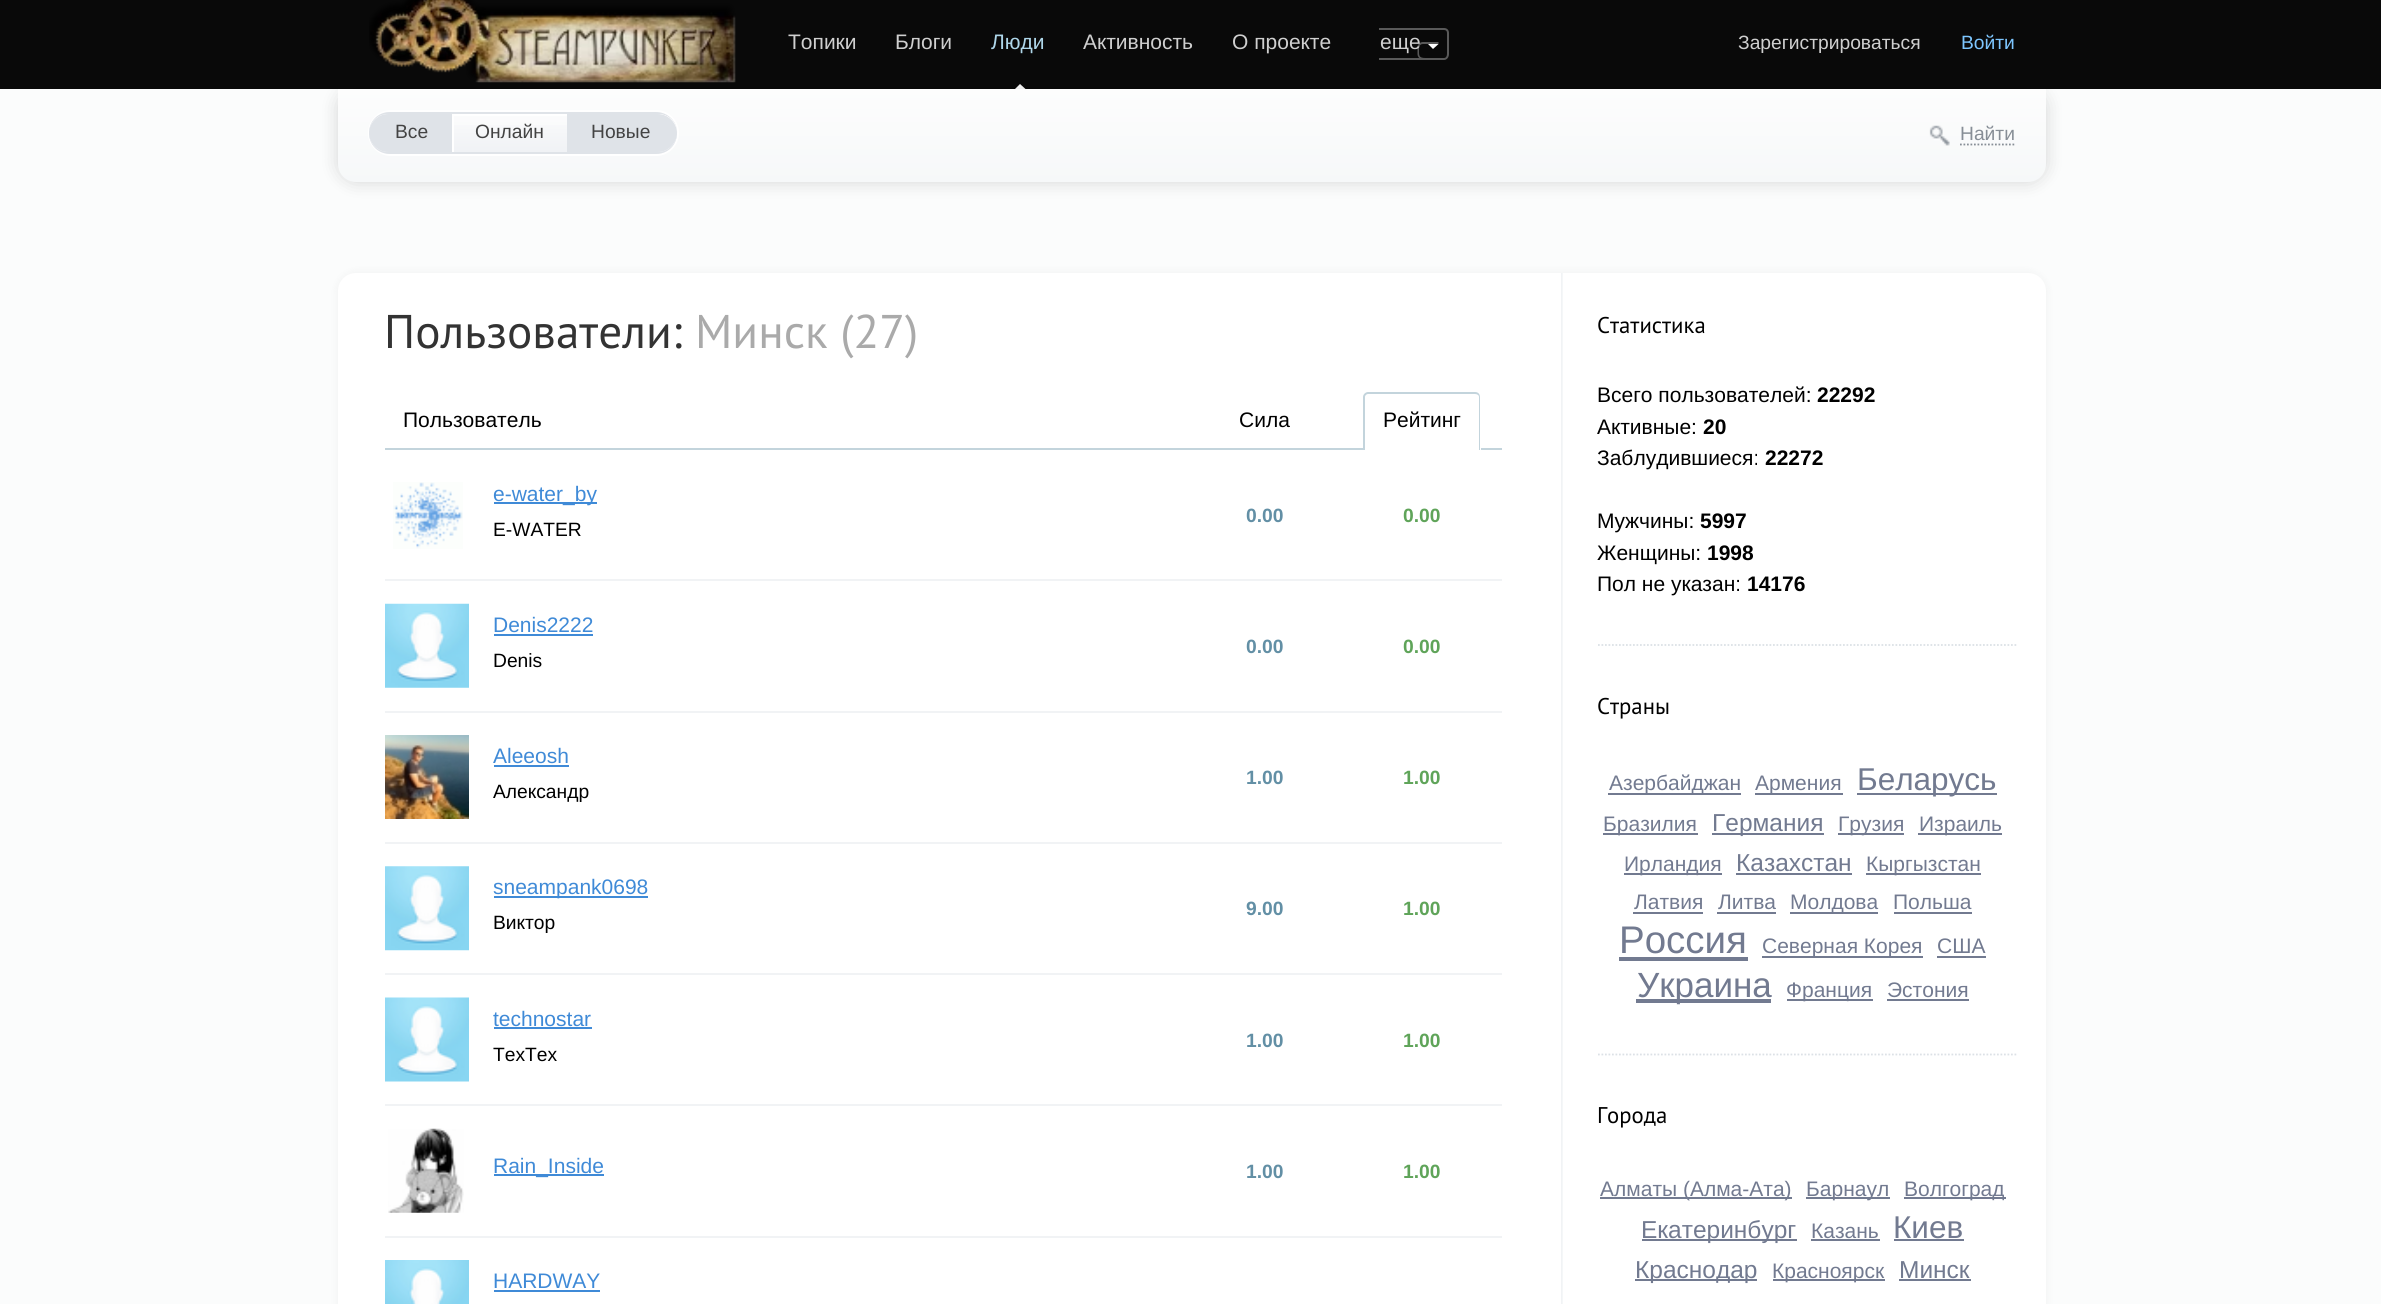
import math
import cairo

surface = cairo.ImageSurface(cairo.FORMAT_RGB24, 2381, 1304)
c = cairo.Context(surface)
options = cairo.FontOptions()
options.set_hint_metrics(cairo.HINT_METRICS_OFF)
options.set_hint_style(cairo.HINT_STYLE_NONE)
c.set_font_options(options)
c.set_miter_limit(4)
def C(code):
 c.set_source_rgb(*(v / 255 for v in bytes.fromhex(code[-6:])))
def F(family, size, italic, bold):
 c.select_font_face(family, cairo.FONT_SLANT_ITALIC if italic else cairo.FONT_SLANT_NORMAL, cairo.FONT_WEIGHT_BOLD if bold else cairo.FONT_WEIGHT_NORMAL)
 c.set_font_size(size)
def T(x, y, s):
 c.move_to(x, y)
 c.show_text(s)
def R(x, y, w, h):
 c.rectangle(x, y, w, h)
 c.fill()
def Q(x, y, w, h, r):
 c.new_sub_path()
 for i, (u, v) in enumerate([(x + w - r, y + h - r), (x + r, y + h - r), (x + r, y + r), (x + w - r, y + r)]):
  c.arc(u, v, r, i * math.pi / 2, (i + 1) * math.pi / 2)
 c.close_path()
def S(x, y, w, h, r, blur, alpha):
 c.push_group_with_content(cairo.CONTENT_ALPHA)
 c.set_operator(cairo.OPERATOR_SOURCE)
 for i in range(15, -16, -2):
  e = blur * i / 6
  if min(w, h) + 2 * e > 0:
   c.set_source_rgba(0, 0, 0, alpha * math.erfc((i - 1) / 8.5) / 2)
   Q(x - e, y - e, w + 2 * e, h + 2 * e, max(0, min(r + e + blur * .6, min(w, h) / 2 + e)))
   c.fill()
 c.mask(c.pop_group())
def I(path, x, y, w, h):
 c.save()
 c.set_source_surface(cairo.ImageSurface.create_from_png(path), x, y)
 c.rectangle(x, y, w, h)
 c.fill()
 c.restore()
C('fbfcfc')
c.paint()
C('090909')
R(0,0,2381,89)
I('1.png',369,0,367,83)
F('Liberation Sans',21,0,0)
C('cfcfcf')
T(788,49,'Топики')
T(895,49,'Блоги')
C('aed6e9')
T(991,49,'Люди')
C('ffffff')
c.new_path()
c.move_to(1025.5,89)
c.line_to(1015,89)
c.line_to(1020,84)
c.close_path()
c.fill()
C('cfcfcf')
T(1083,49,'Активность')
T(1232,49,'О проекте')
C('595959')
c.set_fill_rule(cairo.FILL_RULE_EVEN_ODD)
c.new_path()
c.move_to(1423,42)
c.line_to(1438.5,42)
c.line_to(1438.5,59.5)
c.line_to(1423,59.5)
c.curve_to(1420,59.5,1417.5,57,1417.5,54)
c.line_to(1417.5,47)
c.curve_to(1417.5,44.5,1420,42,1423,42)
c.close_path()
c.move_to(1423,44)
c.line_to(1438.5,44)
c.line_to(1438.5,58)
c.line_to(1425.5,58)
c.curve_to(1418.5,58,1419,55.5,1419,49.5)
c.curve_to(1419,47,1419.5,44,1423,44)
c.close_path()
c.fill()
c.new_path()
c.move_to(1379,28)
c.line_to(1444,28)
c.curve_to(1447,28,1449,30,1449,33)
c.line_to(1449,54)
c.curve_to(1449,57,1447,60,1444,60)
c.line_to(1379,60)
c.close_path()
c.move_to(1379,30)
c.line_to(1444,30)
c.curve_to(1446,30,1447,31,1447,33)
c.line_to(1447,54)
c.curve_to(1447,56,1446,58,1444,58)
c.line_to(1379,58)
c.close_path()
c.fill()
C('cfcfcf')
T(1380,49,'еще')
C('ffffff')
c.set_fill_rule(cairo.FILL_RULE_WINDING)
c.new_path()
c.move_to(1428,44)
c.line_to(1438.5,44)
c.line_to(1433,49)
c.close_path()
c.fill()
F('Liberation Sans',19.25,0,0)
C('cfcfcf')
T(1738,49,'Зарегистрироваться')
C('7dc6ff')
T(1961,49,'Войти')
C('000000')
S(338,89,1708,93,18,9,.15)
gradient = cairo.LinearGradient(1192,89,1192,182)
gradient.add_color_stop_rgba(0,0.992,0.992,0.992,1)
gradient.add_color_stop_rgba(1,0.965,0.973,0.976,1)
c.set_source(gradient)
c.new_path()
c.move_to(338,89)
c.line_to(2046,89)
c.line_to(2046,164)
c.curve_to(2046,174,2038,182,2028,182)
c.line_to(356,182)
c.curve_to(346,182,338,174,338,164)
c.close_path()
c.fill()
Q(369,111,309,44,22)
C('ffffff')
c.stroke()
C('dfe3e8')
c.new_path()
c.move_to(369,132)
c.line_to(369,133)
c.curve_to(369,145,378,154,390,154)
c.line_to(452,154)
c.line_to(452,152)
c.line_to(390,152)
c.curve_to(379,152,370,143,369,132)
c.close_path()
c.fill()
c.new_path()
c.move_to(390,114)
c.line_to(452,114)
c.line_to(452,112)
c.line_to(390,112)
c.curve_to(378,112,369,121,369,133)
c.line_to(369,134)
c.curve_to(370,123,379,114,390,114)
c.close_path()
c.fill()
R(450,112,2,42)
c.save()
Q(369,112,308,42,21)
c.clip()
gradient = cairo.LinearGradient(410,114,410,152)
gradient.add_color_stop_rgba(0,0.984,0.984,0.988,1)
gradient.add_color_stop_rgba(1,0.941,0.949,0.961,1)
c.set_source(gradient)
c.new_path()
c.move_to(388,114)
c.line_to(450,114)
c.line_to(450,152)
c.line_to(388,152)
c.curve_to(377.5,152,369,143.5,369,133)
c.curve_to(369,122.5,377.5,114,388,114)
c.close_path()
c.fill()
c.restore()
c.new_path()
c.move_to(388,114)
c.curve_to(378,114,369,123,369,133)
c.curve_to(369,143,378,152,388,152)
c.line_to(450,152)
c.line_to(450,114)
c.close_path()
c.fill()
C('434343')
T(395,138,'Все')
C('dfe3e8')
R(452,152,117,2)
R(452,112,117,2)
R(567,112,2,42)
gradient = cairo.LinearGradient(509,114,509,152)
gradient.add_color_stop_rgba(0,0.984,0.984,0.988,1)
gradient.add_color_stop_rgba(1,0.941,0.949,0.961,1)
c.set_source(gradient)
R(454,125,113,27)
C('ffffff')
R(452,114,115,2)
R(452,114,2,38)
C('434343')
T(475,138,'Онлайн')
C('dfe3e8')
c.new_path()
c.move_to(569,154)
c.line_to(656,154)
c.curve_to(668,154,677,145,677,133)
c.line_to(677,132)
c.curve_to(676,144,668,152,656,152)
c.line_to(569,152)
c.close_path()
c.fill()
c.new_path()
c.move_to(569,112)
c.line_to(569,114)
c.line_to(656,114)
c.curve_to(668,114,676,122,677,134)
c.curve_to(678,122,668,112,656,112)
c.close_path()
c.fill()
c.save()
Q(369,112,308,42,21)
c.clip()
gradient = cairo.LinearGradient(623,114,623,152)
gradient.add_color_stop_rgba(0,0.984,0.984,0.988,1)
gradient.add_color_stop_rgba(1,0.941,0.949,0.961,1)
c.set_source(gradient)
c.new_path()
c.move_to(569,114)
c.line_to(658,114)
c.curve_to(668.5,114,677,122.5,677,133)
c.curve_to(677,143.5,668.5,152,658,152)
c.line_to(569,152)
c.close_path()
c.fill()
c.restore()
C('ffffff')
c.new_path()
c.move_to(569,114)
c.line_to(569,116)
c.line_to(658,116)
c.curve_to(669,116,676,124,677,134)
c.curve_to(678,123,669,114,658,114)
c.close_path()
c.fill()
C('dfe3e8')
c.new_path()
c.move_to(569,114)
c.line_to(569,152)
c.line_to(658,152)
c.curve_to(668,152,677,143,677,133)
c.curve_to(677,123,668,114,658,114)
c.close_path()
c.fill()
C('434343')
T(591,138,'Новые')
I('2.png',1929,125,21,21)
C('878e96')
T(1960,140,'Найти')
c.new_path()
c.move_to(1960,144.5)
c.line_to(2016,144.5)
c.set_line_width(1.8)
c.set_dash([1.75,1.75])
c.stroke()
C('000000')
S(338,273,1708,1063,18,4.5,.05)
C('ffffff')
Q(338,273,1708,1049,18)
c.fill()
I('3.png',1561,273,2,1031)
F('PT Sans',47.25,0,0)
C('333333')
T(384,348,'Пользователи:')
C('aaaaaa')
T(695,348,'Минск (27)')
C('c3d4dc')
R(385,448,1117,2)
F('Liberation Sans',21,0,0)
C('000000')
T(403,427,'Пользователь')
T(1239,427,'Сила')
C('ffffff')
c.new_path()
c.move_to(1368,392)
c.line_to(1476,392)
c.curve_to(1479,392,1481,394,1481,397)
c.line_to(1481,450)
c.line_to(1363,450)
c.line_to(1363,397)
c.curve_to(1363,394,1365,392,1368,392)
c.close_path()
c.fill()
C('c3d4dc')
c.set_fill_rule(cairo.FILL_RULE_EVEN_ODD)
c.new_path()
c.move_to(1368,392)
c.line_to(1475,392)
c.curve_to(1478,392,1480,394,1480,397)
c.line_to(1480,450)
c.line_to(1363,450)
c.line_to(1363,397)
c.curve_to(1363,394,1366,392,1368,392)
c.close_path()
c.move_to(1368,394)
c.line_to(1475,394)
c.curve_to(1477,394,1479,395,1479,397)
c.line_to(1479,450)
c.line_to(1365,450)
c.line_to(1365,397)
c.curve_to(1365,395,1367,394,1368,394)
c.close_path()
c.fill()
C('000000')
T(1383,427,'Рейтинг')
I('4.png',393,482,70,67)
C('3f8ad7')
R(494,502,103,2)
T(493,501,'e-water_by')
F('Liberation Sans',19.25,0,0)
C('000000')
T(493,536,'E-WATER')
F('Liberation Sans',19.25,0,1)
C('628fa5')
T(1246,522,'0.00')
C('5fa459')
T(1403,522,'0.00')
C('f1f3f5')
R(385,579,1117,2)
I('5.png',385,603,84,85)
F('Liberation Sans',21,0,0)
C('3f8ad7')
T(493,632,'Denis2222')
R(494,634,99,2)
F('Liberation Sans',19.25,0,0)
C('000000')
T(493,667,'Denis')
F('Liberation Sans',19.25,0,1)
C('628fa5')
T(1246,653,'0.00')
C('5fa459')
T(1403,653,'0.00')
C('f1f3f5')
R(385,711,1117,2)
I('6.png',385,735,84,84)
F('Liberation Sans',21,0,0)
C('3f8ad7')
T(493,763,'Aleeosh')
R(494,765,75,2)
F('Liberation Sans',19.25,0,0)
C('000000')
T(493,798,'Александр')
F('Liberation Sans',19.25,0,1)
C('628fa5')
T(1246,784,'1.00')
C('5fa459')
T(1403,784,'1.00')
C('f1f3f5')
R(385,842,1117,2)
I('7.png',385,866,84,85)
C('3f8ad7')
R(494,896,154,2)
F('Liberation Sans',21,0,0)
T(493,894,'sneampank0698')
F('Liberation Sans',19.25,0,0)
C('000000')
T(493,929,'Виктор')
F('Liberation Sans',19.25,0,1)
C('628fa5')
T(1246,915,'9.00')
C('5fa459')
T(1403,915,'1.00')
C('f1f3f5')
R(385,973,1117,2)
I('8.png',385,997,84,85)
F('Liberation Sans',21,0,0)
C('3f8ad7')
T(493,1026,'technostar')
R(494,1027,98,2)
F('Liberation Sans',19.25,0,0)
C('000000')
T(493,1061,'ТехТех')
F('Liberation Sans',19.25,0,1)
C('628fa5')
T(1246,1047,'1.00')
C('5fa459')
T(1403,1047,'1.00')
C('f1f3f5')
R(385,1104,1117,2)
I('9.png',388,1128,76,85)
C('3f8ad7')
R(494,1174,110,2)
F('Liberation Sans',21,0,0)
T(493,1173,'Rain_Inside')
F('Liberation Sans',19.25,0,1)
C('628fa5')
T(1246,1178,'1.00')
C('5fa459')
T(1403,1178,'1.00')
C('f1f3f5')
R(385,1236,1117,2)
I('10.png',385,1260,84,44)
F('Liberation Sans',21,0,0)
C('3f8ad7')
T(493,1288,'HARDWAY')
R(494,1290,106,2)
c.new_path()
c.move_to(1598,645)
c.line_to(2018,645)
C('dce1e6')
c.stroke()
F('PT Sans',22.75,0,0)
C('000000')
T(1597,333,'Статистика')
F('Liberation Sans',21,0,0)
T(1597,402,'Всего пользователей:')
F('Liberation Sans',21,0,1)
T(1817,402,'22292')
F('Liberation Sans',21,0,0)
T(1597,434,'Активные:')
F('Liberation Sans',21,0,1)
T(1703,434,'20')
F('Liberation Sans',21,0,0)
T(1597,465,'Заблудившиеся:')
F('Liberation Sans',21,0,1)
T(1765,465,'22272')
F('Liberation Sans',21,0,0)
T(1597,528,'Мужчины:')
F('Liberation Sans',21,0,1)
T(1700,528,'5997')
F('Liberation Sans',21,0,0)
T(1597,560,'Женщины:')
F('Liberation Sans',21,0,1)
T(1707,560,'1998')
F('Liberation Sans',21,0,0)
T(1597,591,'Пол не указан:')
F('Liberation Sans',21,0,1)
T(1747,591,'14176')
c.new_path()
c.move_to(1598,1054.5)
c.line_to(2018,1054.5)
C('dce1e6')
c.stroke()
F('PT Sans',22.75,0,0)
C('000000')
T(1597,714,'Страны')
C('727a90')
R(1608,793,133,2)
F('Liberation Sans',21,0,0)
T(1609,790,'Азербайджан')
R(1755,793,88,2)
T(1755,790,'Армения')
R(1857,793,140,2)
F('Liberation Sans',31.5,0,0)
T(1857,790,'Беларусь')
R(1603,833,95,2)
F('Liberation Sans',21,0,0)
T(1603,831,'Бразилия')
R(1712,833,112,2)
F('Liberation Sans',24.5,0,0)
T(1712,831,'Германия')
R(1838,833,66,2)
F('Liberation Sans',21,0,0)
T(1838,831,'Грузия')
R(1918,833,84,2)
T(1919,831,'Израиль')
R(1624,873,98,2)
T(1624,871,'Ирландия')
F('Liberation Sans',24.5,0,0)
T(1736,871,'Казахстан')
R(1736,873,116,2)
R(1866,873,115,2)
F('Liberation Sans',21,0,0)
T(1866,871,'Кыргызстан')
T(1634,909,'Латвия')
R(1633,912,70,2)
T(1718,909,'Литва')
R(1717,912,59,2)
R(1790,912,88,2)
T(1790,909,'Молдова')
T(1893,909,'Польша')
R(1894,912,78,2)
F('Liberation Sans',38.5,0,0)
T(1619,953,'Россия')
R(1619,957,129,4)
R(1762,956,161,2)
F('Liberation Sans',21,0,0)
T(1762,953,'Северная Корея')
T(1937,953,'США')
R(1937,956,49,2)
R(1636,999,135,4)
F('Liberation Sans',35,0,0)
T(1637,997,'Украина')
R(1787,999,86,2)
F('Liberation Sans',21,0,0)
T(1786,997,'Франция')
T(1887,997,'Эстония')
R(1887,999,82,2)
F('PT Sans',22.75,0,0)
C('000000')
T(1597,1123,'Города')
C('727a90')
R(1600,1197,192,2)
F('Liberation Sans',21,0,0)
T(1600,1196,'Алматы (Алма-Ата)')
R(1806,1197,84,2)
T(1806,1196,'Барнаул')
R(1904,1197,102,2)
T(1904,1196,'Волгоград')
R(1642,1239,155,2)
F('Liberation Sans',24.5,0,0)
T(1641,1238,'Екатеринбург')
F('Liberation Sans',21,0,0)
T(1811,1238,'Казань')
R(1811,1239,69,2)
F('Liberation Sans',31.5,0,0)
T(1893,1238,'Киев')
R(1894,1239,70,2)
R(1635,1279,122,2)
F('Liberation Sans',24.5,0,0)
T(1635,1278,'Краснодар')
R(1773,1279,112,2)
F('Liberation Sans',21,0,0)
T(1772,1278,'Красноярск')
F('Liberation Sans',24.5,0,0)
T(1899,1278,'Минск')
R(1899,1279,72,2)
surface.write_to_png('o.png')
